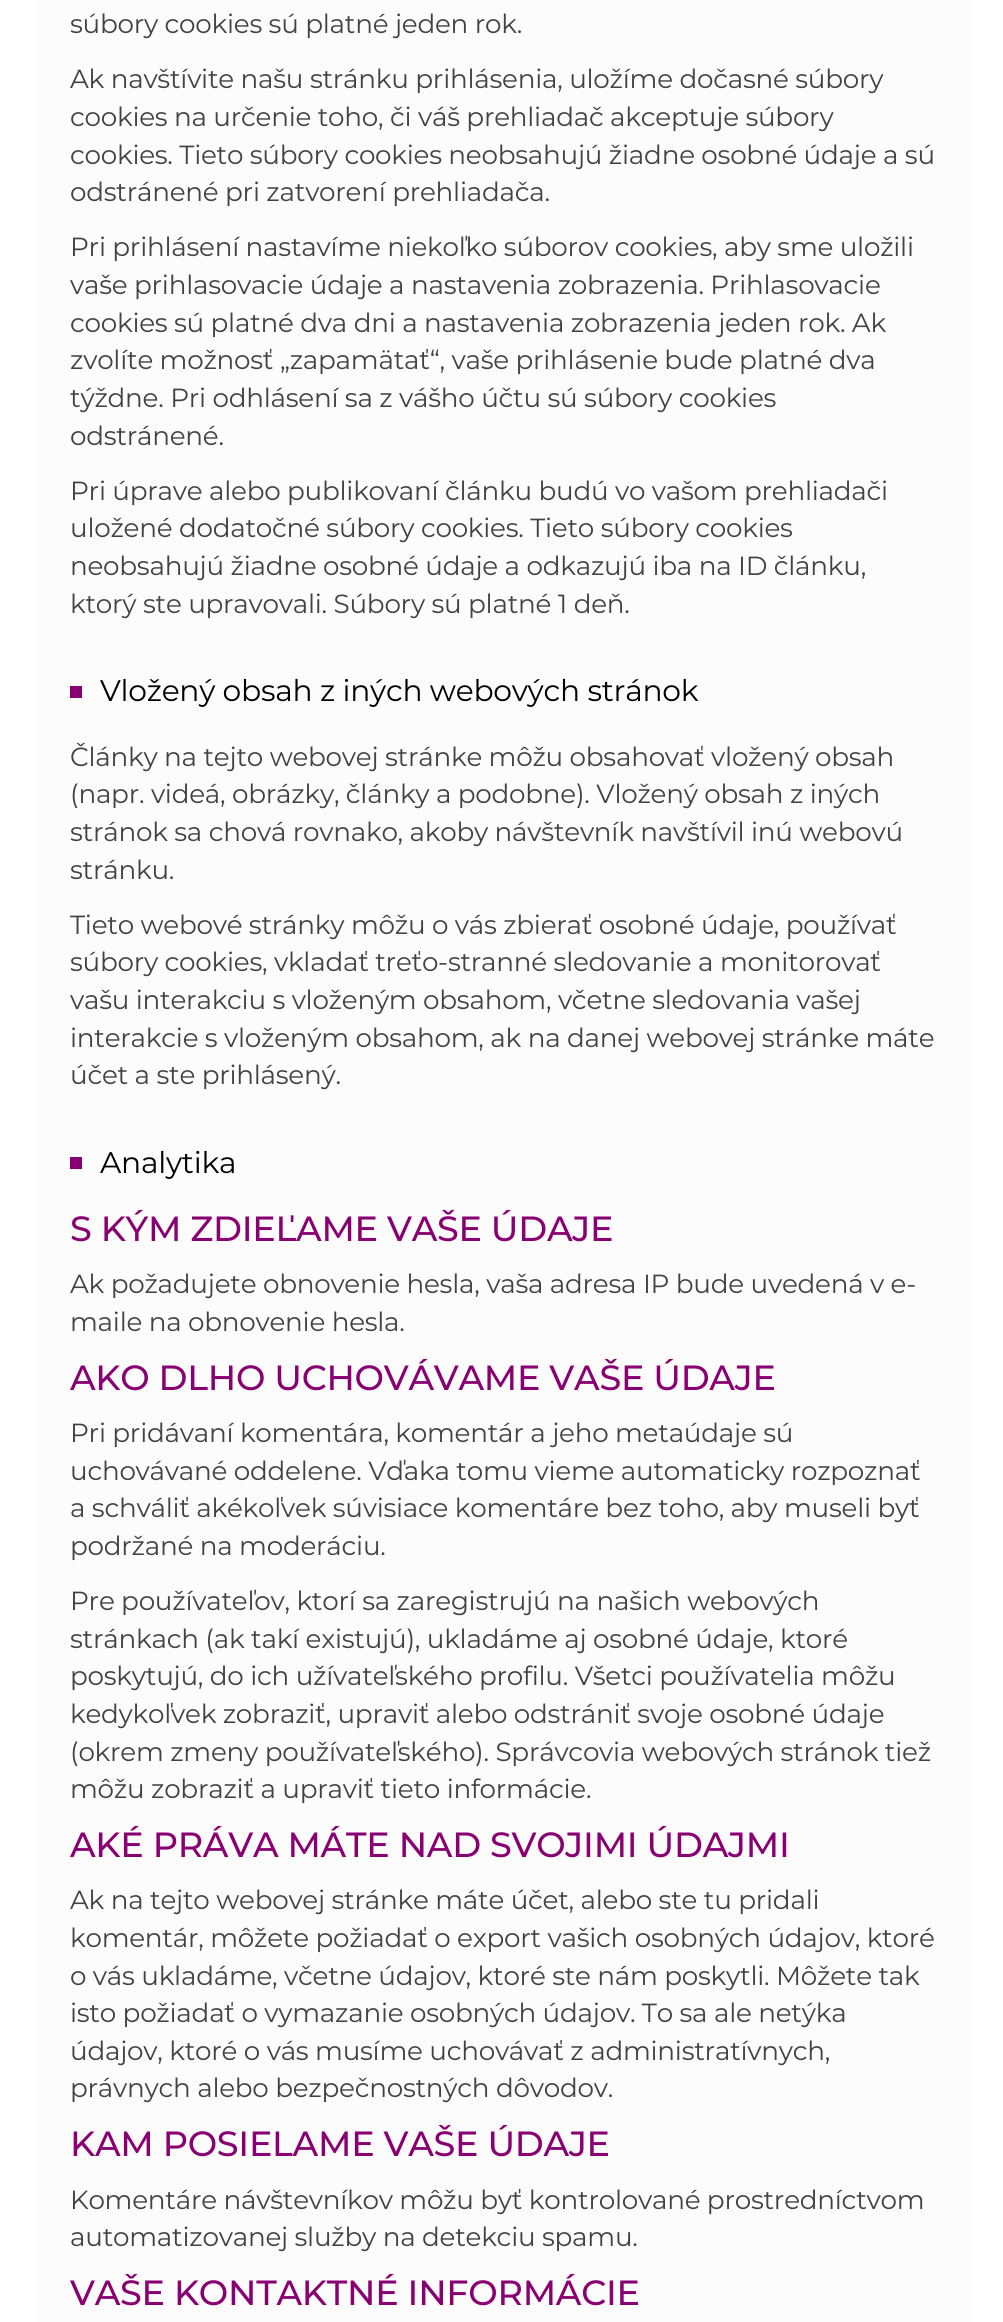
import math
import cairo

surface = cairo.ImageSurface(cairo.FORMAT_RGB24, 1003, 2322)
c = cairo.Context(surface)
options = cairo.FontOptions()
options.set_hint_metrics(cairo.HINT_METRICS_OFF)
options.set_hint_style(cairo.HINT_STYLE_NONE)
c.set_font_options(options)
c.set_miter_limit(4)
def C(code):
 c.set_source_rgb(*(v / 255 for v in bytes.fromhex(code[-6:])))
def F(family, size, italic, bold):
 c.select_font_face(family, cairo.FONT_SLANT_ITALIC if italic else cairo.FONT_SLANT_NORMAL, cairo.FONT_WEIGHT_BOLD if bold else cairo.FONT_WEIGHT_NORMAL)
 c.set_font_size(size)
def L(x, y, s, letter, word):
 c.move_to(x, y)
 for ch in s:
  c.show_text(ch)
  c.rel_move_to(letter + word * (ch == ' '), 0)
def R(x, y, w, h):
 c.rectangle(x, y, w, h)
 c.fill()
C('ffffff')
c.paint()
C('fcfcfc')
R(35,0,935,2322)
F('Montserrat',26.25,0,0)
C('434142')
L(70,33,'súbory cookies sú platné jeden rok.',-.25,0)
L(70,88,'Ak navštívite našu stránku prihlásenia, uložíme dočasné súbory',-.25,0)
L(70,126,'cookies na určenie toho, či váš prehliadač akceptuje súbory',-.25,0)
L(70,164,'cookies. Tieto súbory cookies neobsahujú žiadne osobné údaje a sú',-.25,0)
L(70,201,'odstránené pri zatvorení prehliadača.',-.25,0)
L(70,256,'Pri prihlásení nastavíme niekoľko súborov cookies, aby sme uložili',-.25,0)
L(70,294,'vaše prihlasovacie údaje a nastavenia zobrazenia. Prihlasovacie',-.25,0)
L(70,332,'cookies sú platné dva dni a nastavenia zobrazenia jeden rok. Ak',-.25,0)
L(70,369,'zvolíte možnosť „zapamätať“, vaše prihlásenie bude platné dva',-.25,0)
L(70,407,'týždne. Pri odhlásení sa z vášho účtu sú súbory cookies',-.25,0)
L(70,445,'odstránené.',-.25,0)
L(70,500,'Pri úprave alebo publikovaní článku budú vo vašom prehliadači',-.25,0)
L(70,537,'uložené dodatočné súbory cookies. Tieto súbory cookies',-.25,0)
L(70,575,'neobsahujú žiadne osobné údaje a odkazujú iba na ID článku,',-.25,0)
L(70,613,'ktorý ste upravovali. Súbory sú platné 1 deň.',-.25,0)
C('880071')
R(70,686,12,12)
F('Montserrat',29.75,0,0)
C('000000')
L(100,701,'Vložený obsah z iných webových stránok',-.25,0)
F('Montserrat',26.25,0,0)
C('434142')
L(70,766,'Články na tejto webovej stránke môžu obsahovať vložený obsah',-.25,0)
L(70,803,'(napr. videá, obrázky, články a podobne). Vložený obsah z iných',-.25,0)
L(70,841,'stránok sa chová rovnako, akoby návštevník navštívil inú webovú',-.25,0)
L(70,879,'stránku.',-.25,0)
L(70,934,'Tieto webové stránky môžu o vás zbierať osobné údaje, používať',-.25,0)
L(70,971,'súbory cookies, vkladať treťo-stranné sledovanie a monitorovať',-.25,0)
L(70,1009,'vašu interakciu s vloženým obsahom, včetne sledovania vašej',-.25,0)
L(70,1047,'interakcie s vloženým obsahom, ak na danej webovej stránke máte',-.25,0)
L(70,1084,'účet a ste prihlásený.',-.25,0)
C('880071')
R(70,1157,12,12)
F('Montserrat',29.75,0,0)
C('000000')
L(100,1173,'Analytika',-.25,0)
F('Montserrat Medium',35,0,0)
C('880071')
L(70,1241,'S KÝM ZDIEĽAME VAŠE ÚDAJE',-.25,0)
F('Montserrat',26.25,0,0)
C('434142')
L(70,1293,'Ak požadujete obnovenie hesla, vaša adresa IP bude uvedená v e-',-.25,0)
L(70,1331,'maile na obnovenie hesla.',-.25,0)
F('Montserrat Medium',35,0,0)
C('880071')
L(70,1390,'AKO DLHO UCHOVÁVAME VAŠE ÚDAJE',-.25,0)
F('Montserrat',26.25,0,0)
C('434142')
L(70,1442,'Pri pridávaní komentára, komentár a jeho metaúdaje sú',-.25,0)
L(70,1480,'uchovávané oddelene. Vďaka tomu vieme automaticky rozpoznať',-.25,0)
L(70,1517,'a schváliť akékoľvek súvisiace komentáre bez toho, aby museli byť',-.25,0)
L(70,1555,'podržané na moderáciu.',-.25,0)
L(70,1610,'Pre používateľov, ktorí sa zaregistrujú na našich webových',-.25,0)
L(70,1648,'stránkach (ak takí existujú), ukladáme aj osobné údaje, ktoré',-.25,0)
L(70,1685,'poskytujú, do ich užívateľského profilu. Všetci používatelia môžu',-.25,0)
L(70,1723,'kedykoľvek zobraziť, upraviť alebo odstrániť svoje osobné údaje',-.25,0)
L(70,1761,'(okrem zmeny používateľského). Správcovia webových stránok tiež',-.25,0)
L(70,1798,'môžu zobraziť a upraviť tieto informácie.',-.25,0)
F('Montserrat Medium',35,0,0)
C('880071')
L(70,1857,'AKÉ PRÁVA MÁTE NAD SVOJIMI ÚDAJMI',-.25,0)
F('Montserrat',26.25,0,0)
C('434142')
L(70,1909,'Ak na tejto webovej stránke máte účet, alebo ste tu pridali',-.25,0)
L(70,1947,'komentár, môžete požiadať o export vašich osobných údajov, ktoré',-.25,0)
L(70,1985,'o vás ukladáme, včetne údajov, ktoré ste nám poskytli. Môžete tak',-.25,0)
L(70,2022,'isto požiadať o vymazanie osobných údajov. To sa ale netýka',-.25,0)
L(70,2060,'údajov, ktoré o vás musíme uchovávať z administratívnych,',-.25,0)
L(70,2097,'právnych alebo bezpečnostných dôvodov.',-.25,0)
F('Montserrat Medium',35,0,0)
C('880071')
L(70,2156,'KAM POSIELAME VAŠE ÚDAJE',-.25,0)
F('Montserrat',26.25,0,0)
C('434142')
L(70,2209,'Komentáre návštevníkov môžu byť kontrolované prostredníctvom',-.25,0)
L(70,2246,'automatizovanej služby na detekciu spamu.',-.25,0)
F('Montserrat Medium',35,0,0)
C('880071')
L(70,2305,'VAŠE KONTAKTNÉ INFORMÁCIE',-.25,0)
surface.write_to_png('o.png')
